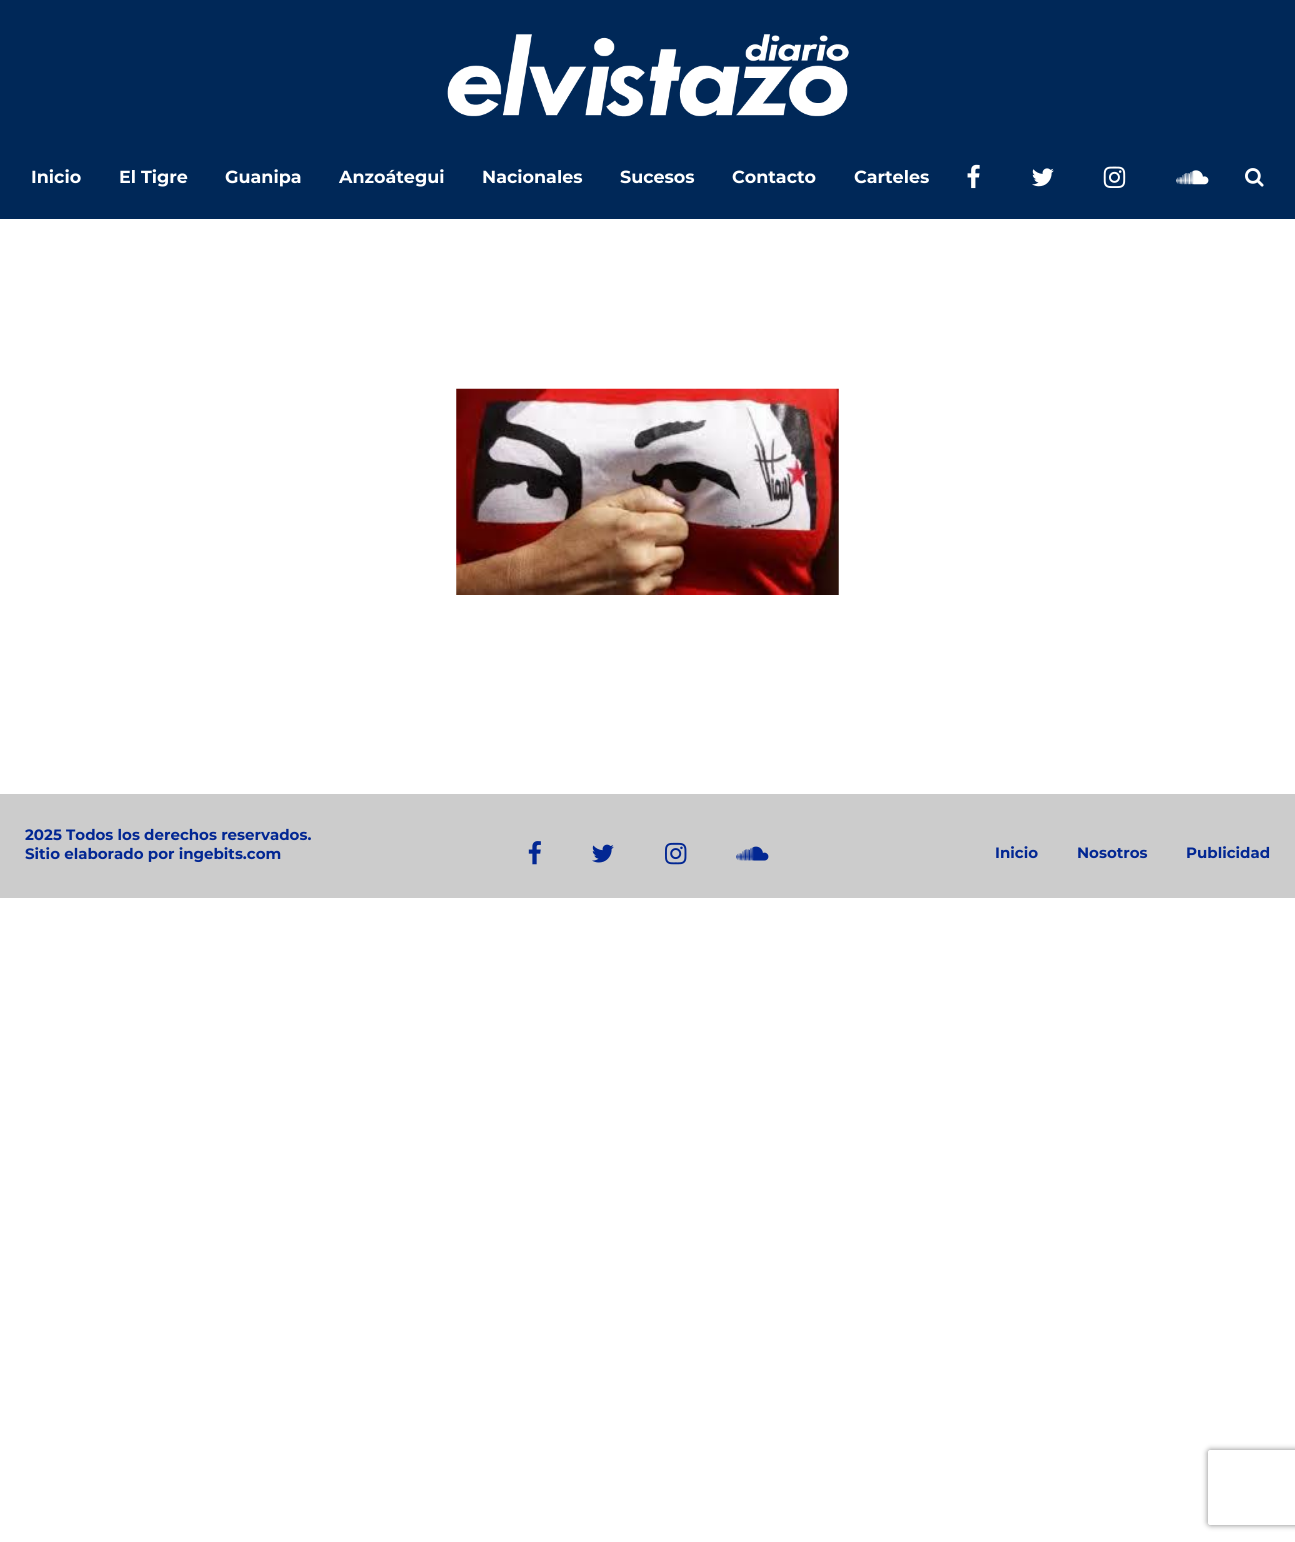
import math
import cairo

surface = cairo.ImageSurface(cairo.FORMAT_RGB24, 1295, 1542)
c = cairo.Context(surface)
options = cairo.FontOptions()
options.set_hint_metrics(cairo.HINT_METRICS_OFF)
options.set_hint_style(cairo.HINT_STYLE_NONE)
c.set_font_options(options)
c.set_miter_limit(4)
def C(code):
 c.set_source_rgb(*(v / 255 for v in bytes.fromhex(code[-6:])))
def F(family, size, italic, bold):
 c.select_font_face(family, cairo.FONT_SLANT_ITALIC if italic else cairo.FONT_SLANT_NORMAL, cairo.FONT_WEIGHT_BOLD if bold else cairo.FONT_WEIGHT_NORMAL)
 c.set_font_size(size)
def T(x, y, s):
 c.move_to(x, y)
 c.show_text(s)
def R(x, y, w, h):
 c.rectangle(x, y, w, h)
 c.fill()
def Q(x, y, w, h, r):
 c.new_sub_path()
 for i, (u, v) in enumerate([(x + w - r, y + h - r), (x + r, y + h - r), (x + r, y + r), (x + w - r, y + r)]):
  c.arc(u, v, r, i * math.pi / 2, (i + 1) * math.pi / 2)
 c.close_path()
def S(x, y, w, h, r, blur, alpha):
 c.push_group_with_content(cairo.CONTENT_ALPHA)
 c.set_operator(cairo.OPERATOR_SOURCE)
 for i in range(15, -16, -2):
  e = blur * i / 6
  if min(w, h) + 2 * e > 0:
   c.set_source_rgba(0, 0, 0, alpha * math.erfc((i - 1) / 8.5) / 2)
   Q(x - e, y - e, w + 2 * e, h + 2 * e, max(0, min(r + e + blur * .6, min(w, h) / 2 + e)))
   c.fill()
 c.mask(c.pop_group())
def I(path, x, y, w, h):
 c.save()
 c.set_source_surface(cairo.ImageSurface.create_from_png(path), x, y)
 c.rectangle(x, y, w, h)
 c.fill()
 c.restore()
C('ffffff')
c.paint()
C('002858')
R(0,0,1295,219)
I('1.png',447,34,402,83)
F('Montserrat',17.5,0,1)
C('ffffff')
T(31,183,'Inicio')
T(119,183,'El Tigre')
T(225,183,'Guanipa')
T(339,183,'Anzoátegui')
T(482,183,'Nacionales')
T(620,183,'Sucesos')
T(732,183,'Contacto')
T(854,183,'Carteles')
I('2.png',967,164,13,25)
I('3.png',1032,168,22,19)
I('4.png',1103,166,23,22)
I('5.png',1176,170,33,15)
I('6.png',1245,168,19,19)
I('7.png',456,388,383,207)
C('cccccc')
R(0,794,1295,104)
F('Montserrat',15,0,1)
C('022793')
T(25,840,'2025 Todos los derechos reservados.')
T(25,859,'Sitio elaborado por ingebits.com')
I('8.png',528,841,13,24)
I('9.png',592,844,22,19)
I('10.png',665,842,22,23)
I('11.png',736,846,33,15)
T(995,858,'Inicio')
T(1077,858,'Nosotros')
T(1186,858,'Publicidad')
c.save()
c.set_fill_rule(cairo.FILL_RULE_EVEN_ODD)
c.new_path()
c.move_to(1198,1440)
c.line_to(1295,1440)
c.line_to(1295,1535)
c.line_to(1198,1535)
c.close_path()
c.move_to(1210.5,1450)
c.line_to(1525.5,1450)
c.curve_to(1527,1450,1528,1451,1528,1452.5)
c.line_to(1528,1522.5)
c.curve_to(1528,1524,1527,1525,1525.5,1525)
c.line_to(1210.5,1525)
c.curve_to(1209,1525,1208,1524,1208,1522.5)
c.line_to(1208,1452.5)
c.curve_to(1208,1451,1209,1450,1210.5,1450)
c.close_path()
c.clip()
C('808080')
S(1208,1450,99,75,2.5,3,1)
c.restore()
surface.write_to_png('o.png')
